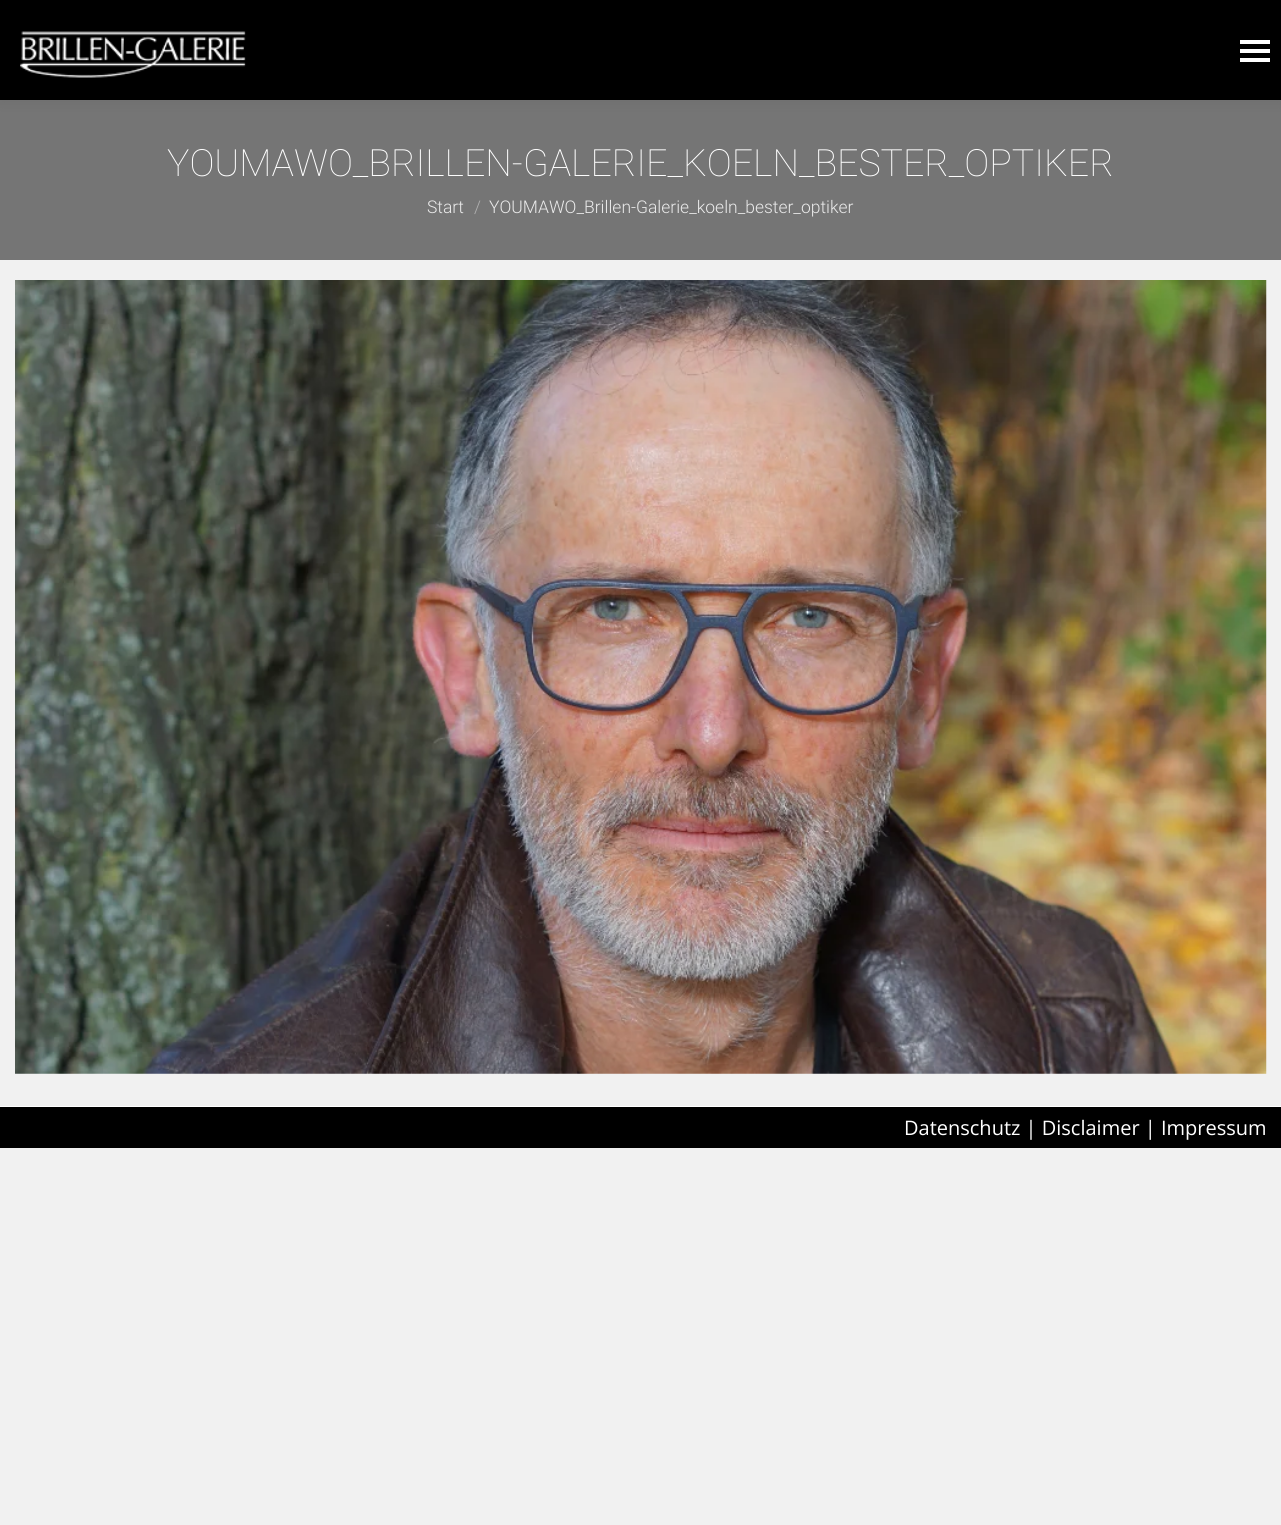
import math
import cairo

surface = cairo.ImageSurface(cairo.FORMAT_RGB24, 1281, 1525)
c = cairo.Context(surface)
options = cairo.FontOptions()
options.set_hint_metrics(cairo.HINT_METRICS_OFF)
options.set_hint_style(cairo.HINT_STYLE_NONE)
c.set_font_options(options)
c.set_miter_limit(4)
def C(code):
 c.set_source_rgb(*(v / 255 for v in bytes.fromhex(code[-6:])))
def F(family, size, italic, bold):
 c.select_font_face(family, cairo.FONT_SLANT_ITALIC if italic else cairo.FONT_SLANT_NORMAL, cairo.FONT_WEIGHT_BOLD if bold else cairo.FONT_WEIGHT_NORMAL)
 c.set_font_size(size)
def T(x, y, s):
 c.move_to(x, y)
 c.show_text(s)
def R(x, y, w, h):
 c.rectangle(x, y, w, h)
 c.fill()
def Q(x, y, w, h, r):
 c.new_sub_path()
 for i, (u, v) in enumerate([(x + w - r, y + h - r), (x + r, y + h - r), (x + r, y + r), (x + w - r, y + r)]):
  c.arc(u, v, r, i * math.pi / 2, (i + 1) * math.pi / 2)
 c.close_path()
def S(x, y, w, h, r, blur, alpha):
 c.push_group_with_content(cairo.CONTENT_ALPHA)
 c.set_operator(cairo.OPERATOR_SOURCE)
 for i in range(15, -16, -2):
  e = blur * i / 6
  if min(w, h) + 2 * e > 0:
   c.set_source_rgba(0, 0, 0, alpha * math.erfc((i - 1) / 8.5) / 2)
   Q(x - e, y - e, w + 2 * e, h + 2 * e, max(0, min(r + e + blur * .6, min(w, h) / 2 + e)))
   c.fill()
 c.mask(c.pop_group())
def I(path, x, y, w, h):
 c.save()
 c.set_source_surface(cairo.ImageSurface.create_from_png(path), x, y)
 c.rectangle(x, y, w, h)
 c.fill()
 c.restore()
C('f1f1f1')
c.paint()
C('757575')
R(0,100,1281,160)
C('000000')
S(-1,-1,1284,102,0,9.5,.07)
C('000000')
R(0,0,1281,100)
I('1.png',20,31,226,47)
C('ffffff')
R(1240,40,30,4)
R(1240,49,30,4)
R(1240,58,30,4)
F('Roboto Thin',37.5,0,0)
T(167,176,'YOUMAWO_BRILLEN-GALERIE_KOELN_BESTER_OPTIKER')
F('Roboto Light',17.5,0,0)
C('eaeaea')
T(427,213,'Start')
C('b0b0b0')
T(474,213,'/')
C('eaeaea')
T(489,213,'YOUMAWO_Brillen-Galerie_koeln_bester_optiker')
I('2.png',15,280,1252,794)
C('000000')
R(0,1107,1281,41)
C('ffffff')
R(0,1106,1281,1)
F('Open Sans',20,0,0)
T(904,1135,'Datenschutz | Disclaimer | Impressum')
surface.write_to_png('o.png')
